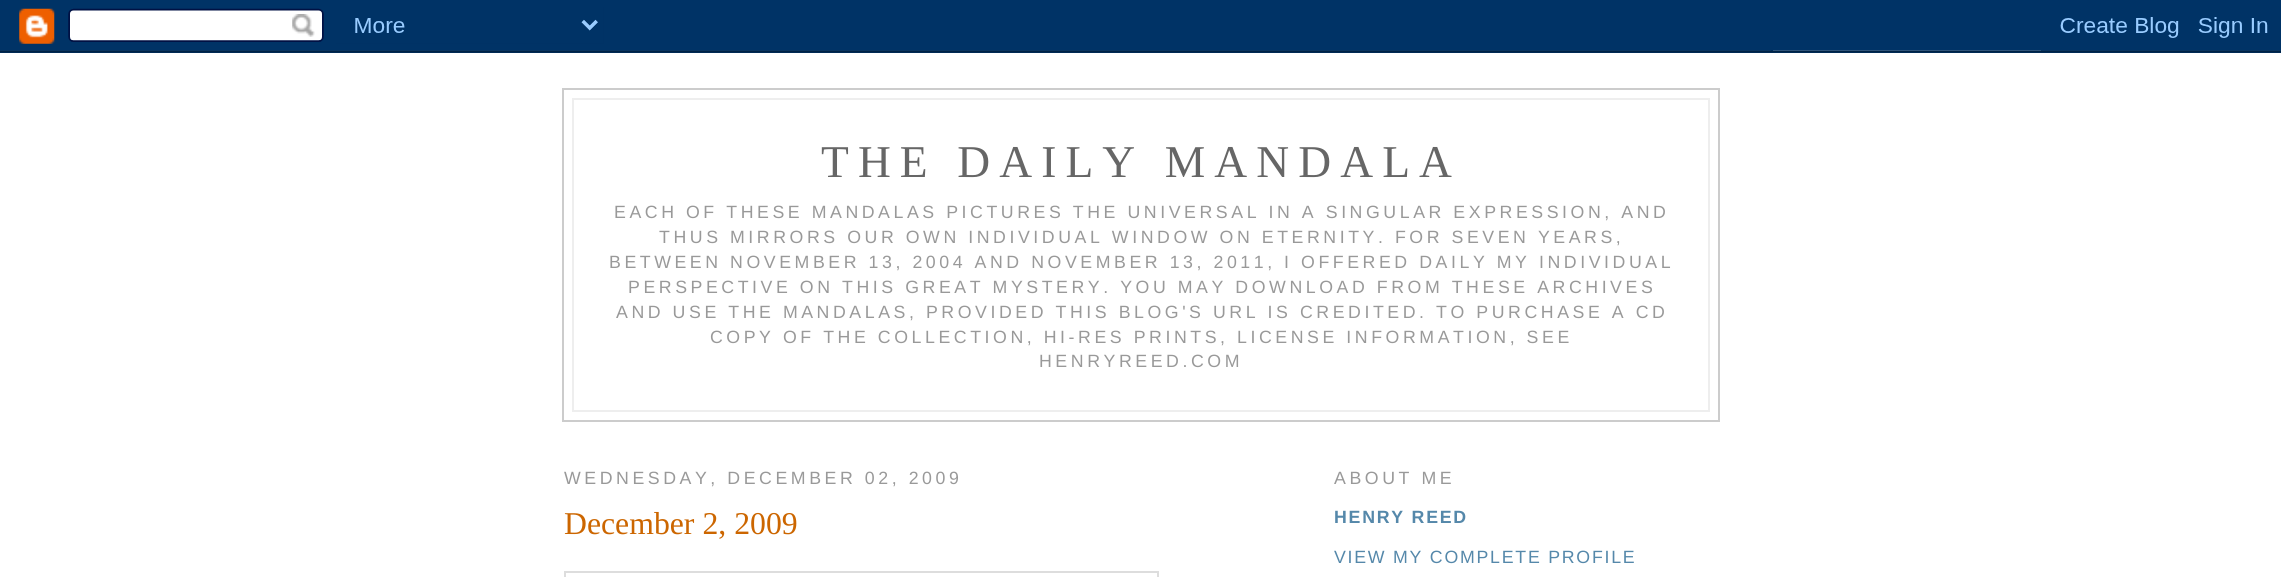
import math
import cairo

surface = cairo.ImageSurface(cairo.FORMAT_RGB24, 2281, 577)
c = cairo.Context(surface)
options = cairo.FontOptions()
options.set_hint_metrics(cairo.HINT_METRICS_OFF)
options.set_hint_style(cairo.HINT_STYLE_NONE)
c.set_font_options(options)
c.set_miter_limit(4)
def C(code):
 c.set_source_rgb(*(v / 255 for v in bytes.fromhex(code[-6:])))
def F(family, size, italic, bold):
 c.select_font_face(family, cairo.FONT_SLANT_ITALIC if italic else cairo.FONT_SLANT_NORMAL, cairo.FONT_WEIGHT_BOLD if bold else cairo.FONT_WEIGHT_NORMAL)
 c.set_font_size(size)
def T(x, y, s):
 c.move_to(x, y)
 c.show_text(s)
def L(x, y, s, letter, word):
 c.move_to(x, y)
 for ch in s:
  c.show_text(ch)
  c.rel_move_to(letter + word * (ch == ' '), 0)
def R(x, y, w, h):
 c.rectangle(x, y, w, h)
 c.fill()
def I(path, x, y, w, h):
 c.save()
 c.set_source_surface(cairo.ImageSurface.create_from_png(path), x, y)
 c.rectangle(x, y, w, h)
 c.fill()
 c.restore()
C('ffffff')
c.paint()
I('1.png',0,0,2281,53)
c.rectangle(563,89,1156,332)
C('cccccc')
c.stroke()
C('eeeeee')
R(572,98,1138,2)
R(1708,98,2,313)
R(572,98,2,103)
F('Liberation Serif',45.5,0,0)
C('666666')
L(821,177,'THE DAILY MANDALA',9.1,0)
C('eeeeee')
R(572,410,1138,2)
R(572,201,2,210)
F('Liberation Sans',17.75,0,0)
C('999999')
L(614,218,'EACH OF THESE MANDALAS PICTURES THE UNIVERSAL IN A SINGULAR EXPRESSION, AND',3.55,0)
L(659,243,'THUS MIRRORS OUR OWN INDIVIDUAL WINDOW ON ETERNITY. FOR SEVEN YEARS,',3.55,0)
L(609,268,'BETWEEN NOVEMBER 13, 2004 AND NOVEMBER 13, 2011, I OFFERED DAILY MY INDIVIDUAL',3.55,0)
L(628,293,'PERSPECTIVE ON THIS GREAT MYSTERY. YOU MAY DOWNLOAD FROM THESE ARCHIVES',3.55,0)
L(616,318,'AND USE THE MANDALAS, PROVIDED THIS BLOG\'S URL IS CREDITED. TO PURCHASE A CD',3.55,0)
L(710,343,'COPY OF THE COLLECTION, HI-RES PRINTS, LICENSE INFORMATION, SEE',3.55,0)
L(1039,367,'HENRYREED.COM',3.55,0)
L(564,484,'WEDNESDAY, DECEMBER 02, 2009',3.55,0)
F('Liberation Serif',31.75,0,0)
C('cc6600')
T(564,534,'December 2, 2009')
c.rectangle(565,572,593,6)
C('dddddd')
c.stroke()
F('Liberation Sans',17.75,0,0)
C('999999')
L(1334,484,'ABOUT ME',3.55,0)
F('Liberation Sans',17.75,0,1)
C('5588aa')
L(1334,523,'HENRY REED',1.75,0)
F('Liberation Sans',17.75,0,0)
L(1334,563,'VIEW MY COMPLETE PROFILE',1.75,0)
surface.write_to_png('o.png')
